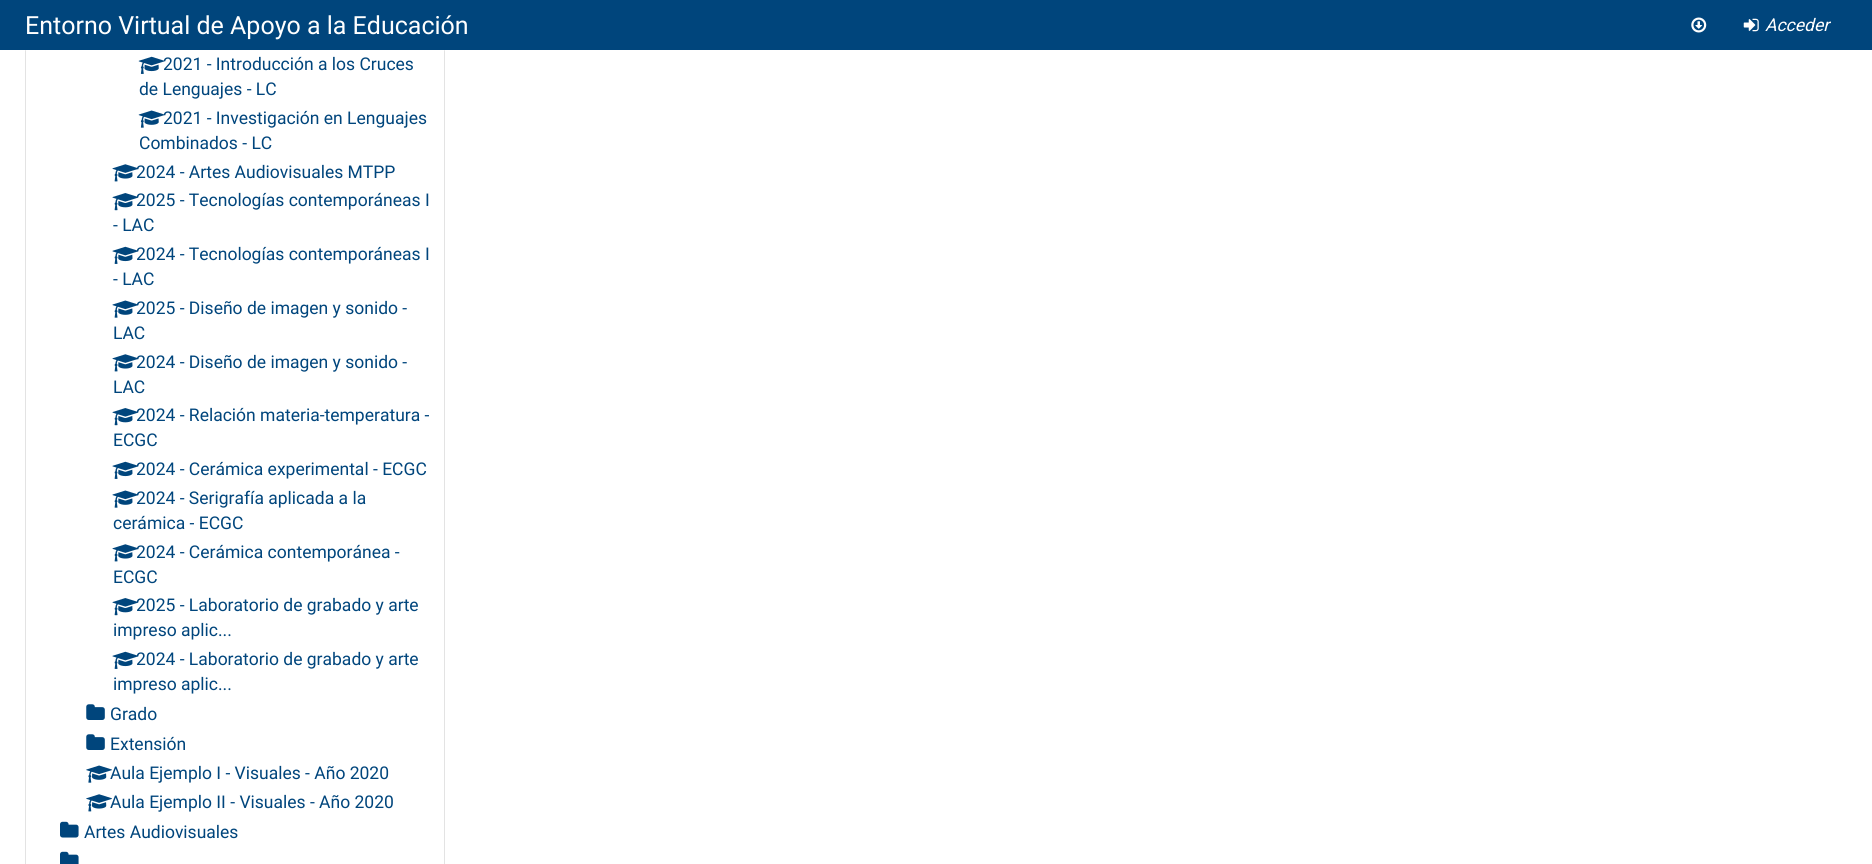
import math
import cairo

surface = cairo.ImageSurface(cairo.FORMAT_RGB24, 1872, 864)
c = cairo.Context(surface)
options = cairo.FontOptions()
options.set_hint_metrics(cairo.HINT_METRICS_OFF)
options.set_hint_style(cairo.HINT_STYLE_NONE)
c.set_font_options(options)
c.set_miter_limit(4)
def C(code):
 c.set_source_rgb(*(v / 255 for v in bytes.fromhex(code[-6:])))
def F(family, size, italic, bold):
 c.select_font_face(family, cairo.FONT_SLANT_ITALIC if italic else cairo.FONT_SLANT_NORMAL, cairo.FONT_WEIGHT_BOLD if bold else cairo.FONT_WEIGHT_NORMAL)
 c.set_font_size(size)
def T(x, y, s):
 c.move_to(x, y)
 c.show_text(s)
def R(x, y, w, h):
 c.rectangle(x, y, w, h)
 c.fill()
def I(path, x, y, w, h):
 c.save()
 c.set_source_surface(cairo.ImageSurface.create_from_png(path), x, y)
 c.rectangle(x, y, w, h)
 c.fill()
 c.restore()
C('ffffff')
c.paint()
c.rectangle(25.5,-.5,419,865)
C('e3e3e3')
c.set_line_width(1)
c.stroke()
c.set_source_rgba(1,1,1,0.3)
R(25,50,420,1)
C('00457c')
R(0,0,1872,50)
F('Roboto',25,0,0)
C('ffffff')
T(25,34,'Entorno Virtual de Apoyo a la Educación')
I('1.png',1691,17,16,16)
I('2.png',1743,18,16,14)
F('Roboto',17.5,1,0)
T(1765,31,'Acceder')
I('3.png',138,56,27,18)
F('Roboto',17.5,0,0)
C('00457c')
T(163,70,'2021 - Introducción a los Cruces')
T(139,95,'de Lenguajes - LC')
I('4.png',138,110,27,18)
T(163,124,'2021 - Investigación en Lenguajes')
T(139,149,'Combinados - LC')
I('5.png',112,164,27,18)
T(136,178,'2024 - Artes Audiovisuales MTPP')
I('6.png',112,193,27,18)
T(136,206,'2025 - Tecnologías contemporáneas I')
T(113,231,'- LAC')
I('7.png',112,246,27,18)
T(136,260,'2024 - Tecnologías contemporáneas I')
T(113,285,'- LAC')
I('8.png',112,300,27,18)
T(136,314,'2025 - Diseño de imagen y sonido -')
T(113,339,'LAC')
I('5.png',112,354,27,18)
T(136,368,'2024 - Diseño de imagen y sonido -')
T(113,393,'LAC')
I('6.png',112,408,27,18)
T(136,421,'2024 - Relación materia-temperatura -')
T(113,446,'ECGC')
I('7.png',112,461,27,18)
T(136,475,'2024 - Cerámica experimental - ECGC')
I('8.png',112,490,27,18)
T(136,504,'2024 - Serigrafía aplicada a la')
T(113,529,'cerámica - ECGC')
I('5.png',112,544,27,18)
T(136,558,'2024 - Cerámica contemporánea -')
T(113,583,'ECGC')
I('6.png',112,598,27,18)
T(136,611,'2025 - Laboratorio de grabado y arte')
T(113,636,'impreso aplic...')
I('7.png',112,651,27,18)
T(136,665,'2024 - Laboratorio de grabado y arte')
T(113,690,'impreso aplic...')
I('9.png',86,704,19,16)
T(110,720,'Grado')
I('9.png',86,734,19,16)
T(110,750,'Extensión')
I('10.png',86,765,26,18)
T(110,779,'Aula Ejemplo I - Visuales - Año 2020')
I('11.png',86,794,26,18)
T(110,808,'Aula Ejemplo II - Visuales - Año 2020')
I('12.png',60,821,19,17)
T(84,838,'Artes Audiovisuales')
I('13.png',60,851,19,13)
surface.write_to_png('o.png')
